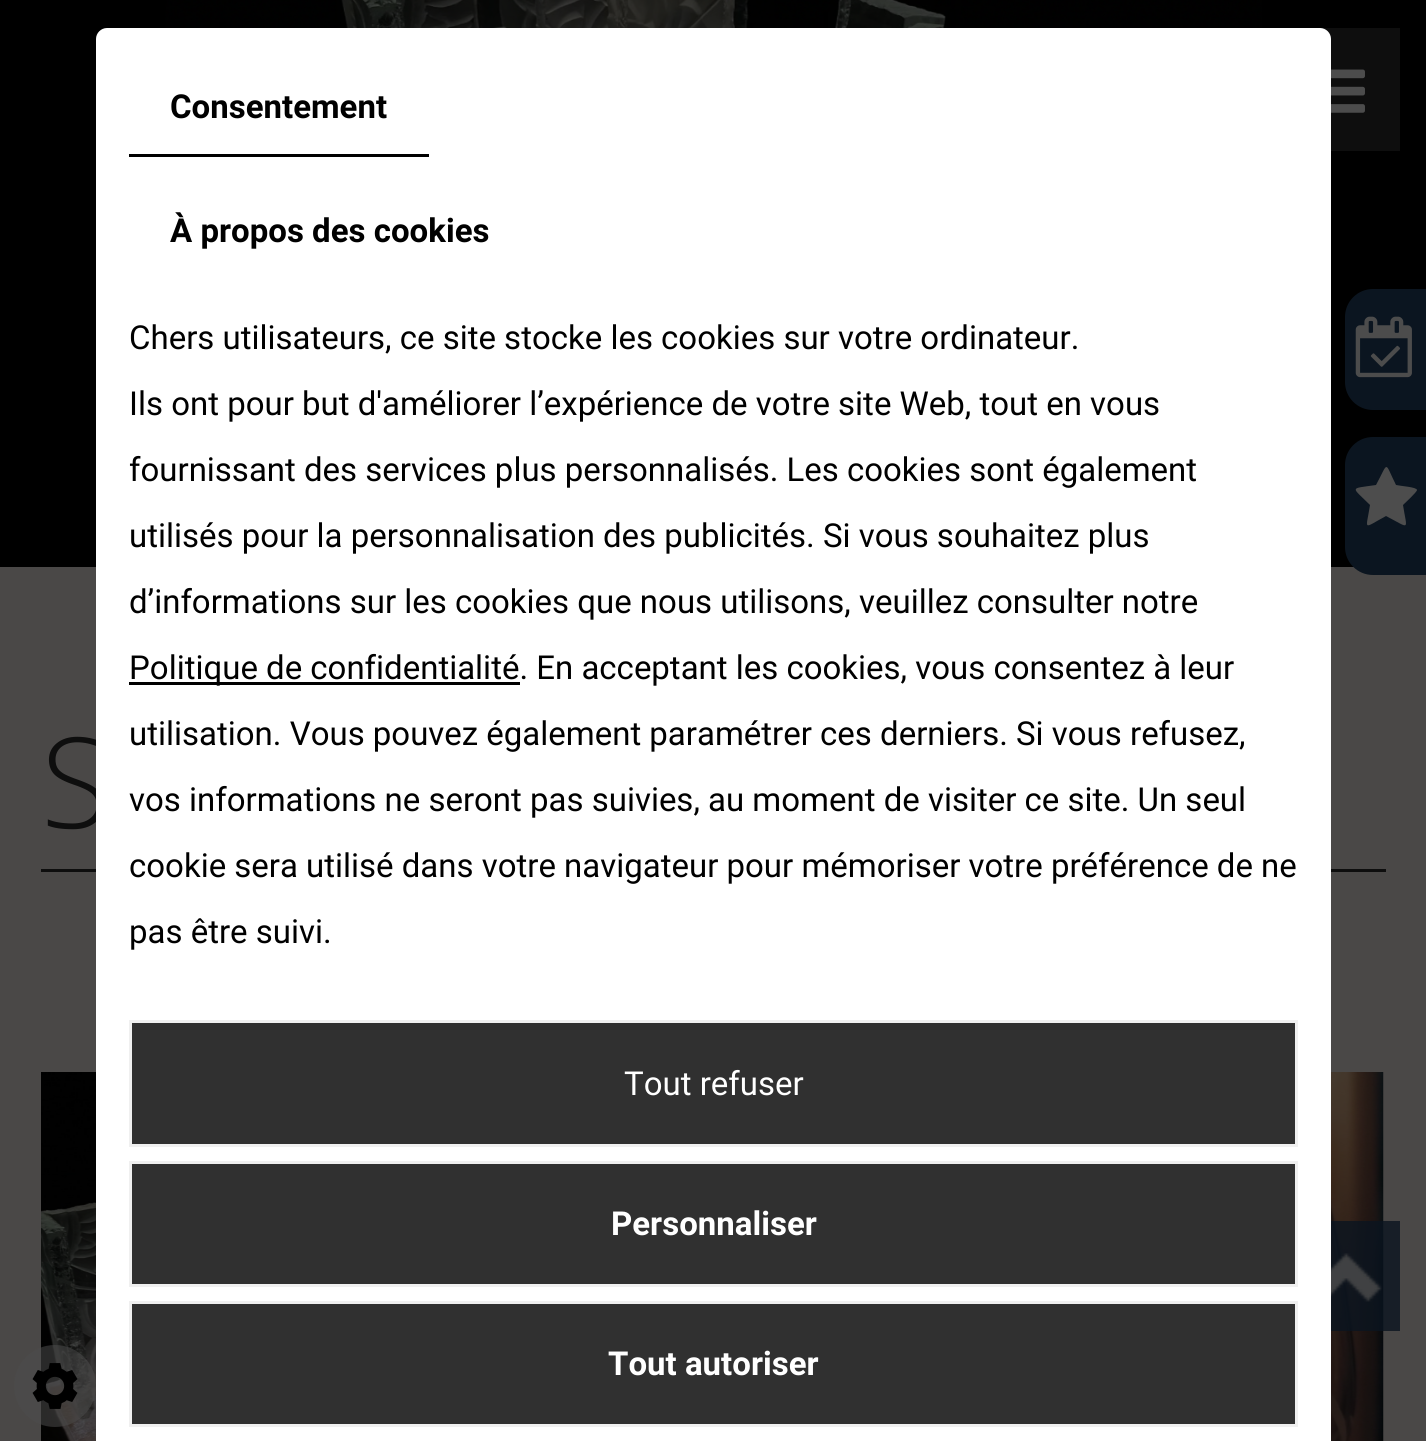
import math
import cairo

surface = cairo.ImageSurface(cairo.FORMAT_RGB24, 1426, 1441)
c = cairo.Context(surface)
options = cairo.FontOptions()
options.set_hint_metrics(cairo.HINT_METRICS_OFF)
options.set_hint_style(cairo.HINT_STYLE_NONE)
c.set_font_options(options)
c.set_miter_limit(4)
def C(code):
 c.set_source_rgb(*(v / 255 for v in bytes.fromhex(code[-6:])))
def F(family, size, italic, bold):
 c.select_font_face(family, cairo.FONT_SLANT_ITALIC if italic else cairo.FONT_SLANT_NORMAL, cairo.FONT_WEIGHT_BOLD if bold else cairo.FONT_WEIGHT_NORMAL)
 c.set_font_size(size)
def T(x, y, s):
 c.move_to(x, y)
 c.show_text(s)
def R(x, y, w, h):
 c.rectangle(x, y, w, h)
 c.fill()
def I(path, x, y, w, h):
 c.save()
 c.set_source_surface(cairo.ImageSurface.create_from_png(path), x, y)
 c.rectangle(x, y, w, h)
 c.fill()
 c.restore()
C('4a4847')
c.paint()
C('000000')
R(0,0,1426,567)
I('1.png',165,0,1097,28)
C('0e0e0e')
R(1320,28,80,123)
I('2.png',1331,69,34,44)
C('0b1520')
c.new_path()
c.move_to(1373,289)
c.line_to(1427,289)
c.line_to(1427,410)
c.line_to(1373,410)
c.curve_to(1357.5,410,1345,397.5,1345,382)
c.line_to(1345,317)
c.curve_to(1345,301.5,1357.5,289,1373,289)
c.close_path()
c.fill()
I('3.png',1355,316,57,62)
c.new_path()
c.move_to(1373,437)
c.line_to(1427,437)
c.line_to(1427,575)
c.line_to(1373,575)
c.curve_to(1357.5,575,1345,562.5,1345,547)
c.line_to(1345,465)
c.curve_to(1345,449.5,1357.5,437,1373,437)
c.close_path()
c.fill()
C('4d4d4d')
c.new_path()
c.move_to(1417,490)
c.curve_to(1417,492,1405,503,1403,505)
c.curve_to(1407,531,1411,529,1386,516)
c.curve_to(1362,529,1366,531,1370,505)
c.curve_to(1351,486,1349,489,1376,485)
c.curve_to(1389,461,1384,461,1396,485)
c.curve_to(1400,486,1417,487,1417,490)
c.close_path()
c.fill()
C('0e0e0e')
R(41,869,1345,3)
F('Open Sans Light',126,0,0)
T(41,828,'S')
I('4.png',41,1072,55,369)
I('5.png',1331,1072,53,369)
c.set_source_rgba(0.043,0.082,0.125,0.8)
R(1331,1221,69,110)
I('6.png',1331,1253,51,49)
C('ffffff')
c.new_path()
c.move_to(107,28)
c.line_to(1320,28)
c.curve_to(1326,28,1331,33,1331,39)
c.line_to(1331,1441)
c.line_to(96,1441)
c.line_to(96,39)
c.curve_to(96,33,101,28,107,28)
c.close_path()
c.fill()
C('000000')
R(129,154,300,3)
F('Roboto',33,0,1)
T(170,118,'Consentement')
T(170,242,'À propos des cookies')
F('Roboto',33,0,0)
T(129,349,'Chers utilisateurs, ce site stocke les cookies sur votre ordinateur.')
T(129,415,'Ils ont pour but d\'améliorer l’expérience de votre site Web, tout en vous')
T(129,481,'fournissant des services plus personnalisés. Les cookies sont également')
T(129,547,'utilisés pour la personnalisation des publicités. Si vous souhaitez plus')
T(129,613,'d’informations sur les cookies que nous utilisons, veuillez consulter notre')
R(129,682,391,3)
T(129,679,'Politique de confidentialité. En acceptant les cookies, vous consentez à leur')
T(129,745,'utilisation. Vous pouvez également paramétrer ces derniers. Si vous refusez,')
T(129,811,'vos informations ne seront pas suivies, au moment de visiter ce site. Un seul')
T(129,877,'cookie sera utilisé dans votre navigateur pour mémoriser votre préférence de ne')
T(129,943,'pas être suivi.')
C('303030')
c.rectangle(130.5,1021.5,1166,124)
c.fill_preserve()
C('f0f0f0')
c.set_line_width(3)
c.stroke()
C('ffffff')
T(624,1095,'Tout refuser')
C('303030')
c.rectangle(130.5,1162.5,1166,123)
c.fill_preserve()
C('f0f0f0')
c.stroke()
F('Roboto',33,0,1)
C('ffffff')
T(611,1235,'Personnaliser')
C('303030')
c.rectangle(130.5,1302.5,1166,123)
c.fill_preserve()
C('f0f0f0')
c.stroke()
C('ffffff')
T(608,1375,'Tout autoriser')
c.set_source_rgba(0.302,0.302,0.302,0.54)
c.new_path()
c.arc(55,1386,41,0,2 * math.pi)
c.fill()
I('7.png',32,1363,46,46)
surface.write_to_png('o.png')
